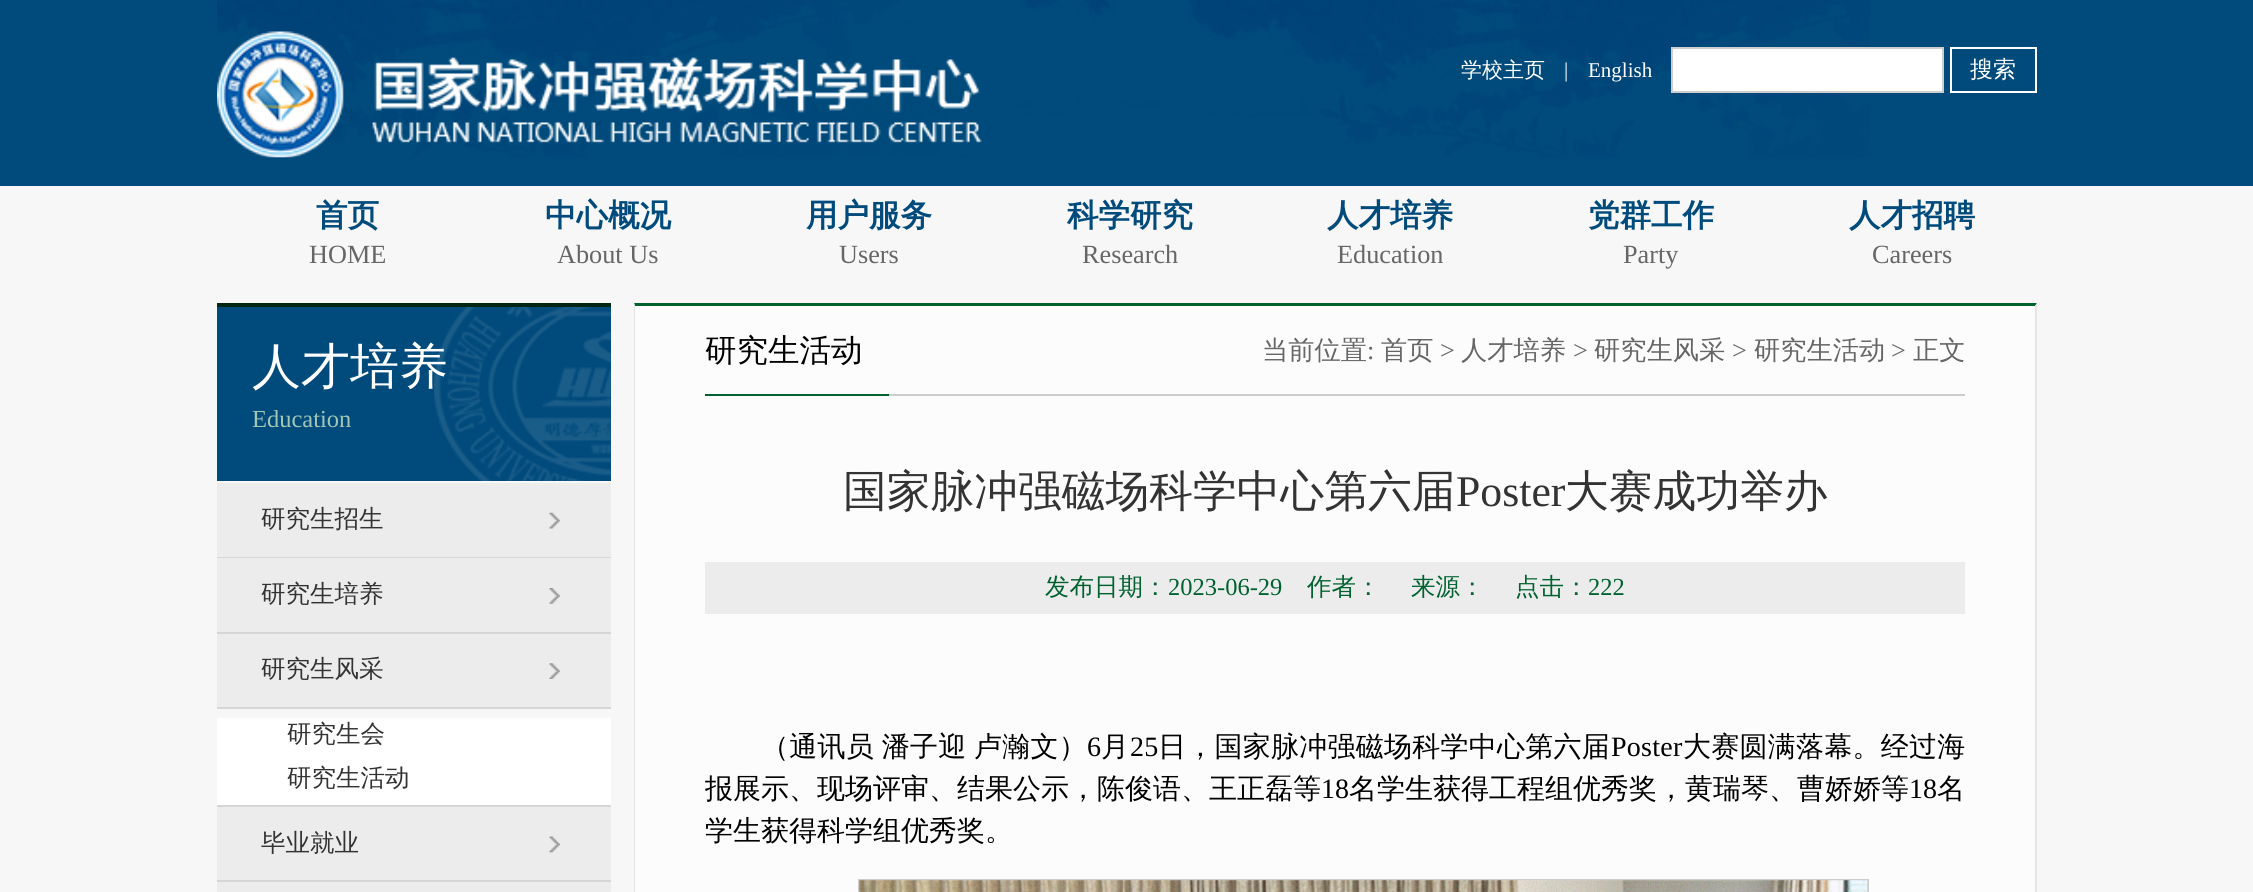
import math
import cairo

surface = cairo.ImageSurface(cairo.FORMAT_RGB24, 2253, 892)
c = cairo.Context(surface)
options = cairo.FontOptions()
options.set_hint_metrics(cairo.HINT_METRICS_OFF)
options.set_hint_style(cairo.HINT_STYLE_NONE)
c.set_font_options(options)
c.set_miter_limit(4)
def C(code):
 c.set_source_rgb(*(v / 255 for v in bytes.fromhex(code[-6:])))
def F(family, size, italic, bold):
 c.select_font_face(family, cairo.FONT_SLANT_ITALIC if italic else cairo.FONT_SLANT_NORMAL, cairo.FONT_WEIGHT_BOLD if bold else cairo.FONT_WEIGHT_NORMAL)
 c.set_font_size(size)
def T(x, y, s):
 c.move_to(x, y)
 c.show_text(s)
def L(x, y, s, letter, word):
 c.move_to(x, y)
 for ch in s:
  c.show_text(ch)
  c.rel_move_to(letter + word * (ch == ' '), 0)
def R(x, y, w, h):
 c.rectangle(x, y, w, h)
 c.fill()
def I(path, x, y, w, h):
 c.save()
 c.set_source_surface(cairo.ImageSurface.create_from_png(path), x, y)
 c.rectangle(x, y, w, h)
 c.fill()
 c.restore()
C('f7f7f7')
c.paint()
C('014b7c')
R(0,0,2253,186)
I('1.png',217,0,1653,157)
I('2.png',217,31,765,127)
F('WenQuanYi Zen Hei Medium',21,0,0)
C('ffffff')
T(1461,77,'学校主页')
F('Liberation Serif',21,0,0)
T(1564,77,'|')
T(1588,77,'English')
c.rectangle(1672,48,271,44)
c.fill_preserve()
C('cecece')
c.stroke()
c.rectangle(1951,48,85,44)
C('ffffff')
c.stroke()
F('WenQuanYi Zen Hei Medium',23,0,0)
T(1970,77,'搜索')
F('WenQuanYi Zen Hei',31.5,0,1)
C('014b7c')
T(316,226,'首页')
F('Liberation Serif',26.25,0,0)
C('666666')
T(309,263,'HOME')
F('WenQuanYi Zen Hei',31.5,0,1)
C('014b7c')
T(545,226,'中心概况')
F('Liberation Serif',26.25,0,0)
C('666666')
T(557,263,'About Us')
F('WenQuanYi Zen Hei',31.5,0,1)
C('014b7c')
T(806,226,'用户服务')
F('Liberation Serif',26.25,0,0)
C('666666')
T(839,263,'Users')
F('WenQuanYi Zen Hei',31.5,0,1)
C('014b7c')
T(1067,226,'科学研究')
F('Liberation Serif',26.25,0,0)
C('666666')
T(1082,263,'Research')
F('WenQuanYi Zen Hei',31.5,0,1)
C('014b7c')
T(1327,226,'人才培养')
F('Liberation Serif',26.25,0,0)
C('666666')
T(1337,263,'Education')
F('WenQuanYi Zen Hei',31.5,0,1)
C('014b7c')
T(1588,226,'党群工作')
F('Liberation Serif',26.25,0,0)
C('666666')
T(1623,263,'Party')
F('WenQuanYi Zen Hei',31.5,0,1)
C('014b7c')
T(1849,226,'人才招聘')
F('Liberation Serif',26.25,0,0)
C('666666')
T(1872,263,'Careers')
C('014b7c')
R(217,307,394,174)
I('3.png',434,307,177,174)
C('002612')
R(217,303,394,4)
F('WenQuanYi Zen Hei Medium',49,0,0)
C('ffffff')
T(252,383,'人才培养')
F('Liberation Serif',24.5,0,0)
C('a3c6b4')
T(252,427,'Education')
C('ececec')
R(217,483,394,74)
I('4.png',549,512,11,17)
C('d6d6d6')
R(217,557,394,1)
F('WenQuanYi Zen Hei Medium',24.5,0,0)
C('333333')
T(261,527,'研究生招生')
C('ececec')
R(217,558,394,74)
I('5.png',549,588,11,16)
C('d6d6d6')
R(217,632,394,2)
C('333333')
T(261,602,'研究生培养')
C('ececec')
R(217,634,394,73)
I('6.png',549,663,11,16)
C('d6d6d6')
R(217,707,394,2)
C('333333')
T(261,677,'研究生风采')
C('ffffff')
R(217,718,394,87)
C('d6d6d6')
R(217,805,394,2)
C('333333')
T(287,742,'研究生会')
T(287,786,'研究生活动')
C('ececec')
R(217,807,394,73)
I('7.png',549,836,11,17)
C('d6d6d6')
R(217,880,394,2)
C('333333')
T(261,851,'毕业就业')
C('ececec')
R(217,882,394,10)
C('fcfcfc')
R(635,306,1400,586)
C('01622f')
c.new_path()
c.move_to(634,303)
c.line_to(2037,303)
c.line_to(2035,306)
c.line_to(635,306)
c.close_path()
c.fill()
C('e5e5e5')
c.new_path()
c.move_to(2037,303)
c.line_to(2037,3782)
c.line_to(2035,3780)
c.line_to(2035,306)
c.close_path()
c.fill()
c.new_path()
c.move_to(634,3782)
c.line_to(634,303)
c.line_to(635,306)
c.line_to(635,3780)
c.close_path()
c.fill()
C('cccccc')
R(889,394,1076,2)
C('01622f')
R(705,394,184,2)
F('WenQuanYi Zen Hei Medium',31.5,0,0)
C('000000')
T(705,361,'研究生活动')
F('WenQuanYi Zen Hei Medium',26.25,0,0)
C('666666')
T(1262,359,'当前位置')
F('Liberation Serif',26.25,0,0)
T(1367,359,':')
F('WenQuanYi Zen Hei Medium',26.25,0,0)
T(1381,359,'首页')
F('Liberation Serif',26.25,0,0)
T(1440,359,'>')
F('WenQuanYi Zen Hei Medium',26.25,0,0)
T(1461,359,'人才培养')
F('Liberation Serif',26.25,0,0)
T(1573,359,'>')
F('WenQuanYi Zen Hei Medium',26.25,0,0)
T(1594,359,'研究生风采')
F('Liberation Serif',26.25,0,0)
T(1732,359,'>')
F('WenQuanYi Zen Hei Medium',26.25,0,0)
T(1754,359,'研究生活动')
F('Liberation Serif',26.25,0,0)
T(1891,359,'>')
F('WenQuanYi Zen Hei Medium',26.25,0,0)
T(1913,359,'正文')
F('WenQuanYi Zen Hei Medium',43.75,0,0)
C('333333')
T(843,506,'国家脉冲强磁场科学中心第六届')
F('Liberation Serif',43.75,0,0)
T(1456,506,'Poster')
F('WenQuanYi Zen Hei Medium',43.75,0,0)
T(1565,506,'大赛成功举办')
C('ececec')
R(705,562,1260,52)
F('WenQuanYi Zen Hei Medium',24.5,0,0)
C('01622f')
T(1045,595,'发布日期：')
F('Liberation Serif',24.5,0,0)
T(1168,595,'2023-06-29')
F('WenQuanYi Zen Hei Medium',24.5,0,0)
T(1307,595,'作者：')
T(1411,595,'来源：')
T(1515,595,'点击：')
F('Liberation Serif',24.5,0,0)
T(1588,595,'222')
F('WenQuanYi Zen Hei Medium',28,0,0)
C('000000')
L(761,756,'（通讯员 潘子迎 卢瀚文）',.25,-1)
F('Liberation Serif',28,0,0)
L(1087,756,'6',.25,0)
F('WenQuanYi Zen Hei Medium',28,0,0)
L(1101,756,'月',.25,0)
F('Liberation Serif',28,0,0)
L(1130,756,'25',.25,0)
F('WenQuanYi Zen Hei Medium',28,0,0)
L(1158,756,'日，国家脉冲强磁场科学中心第六届',.25,0)
F('Liberation Serif',28,0,0)
L(1611,756,'Poster',.25,0)
F('WenQuanYi Zen Hei Medium',28,0,0)
L(1683,756,'大赛圆满落幕。经过海',.25,0)
T(705,798,'报展示、现场评审、结果公示，陈俊语、王正磊等')
F('Liberation Serif',28,0,0)
T(1321,798,'18')
F('WenQuanYi Zen Hei Medium',28,0,0)
T(1349,798,'名学生获得工程组优秀奖，黄瑞琴、曹娇娇等')
F('Liberation Serif',28,0,0)
T(1909,798,'18')
F('WenQuanYi Zen Hei Medium',28,0,0)
T(1937,798,'名')
T(705,840,'学生获得科学组优秀奖。')
c.rectangle(859,880,1009,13)
C('cccccc')
c.stroke()
I('8.png',859,880,1009,12)
surface.write_to_png('o.png')
